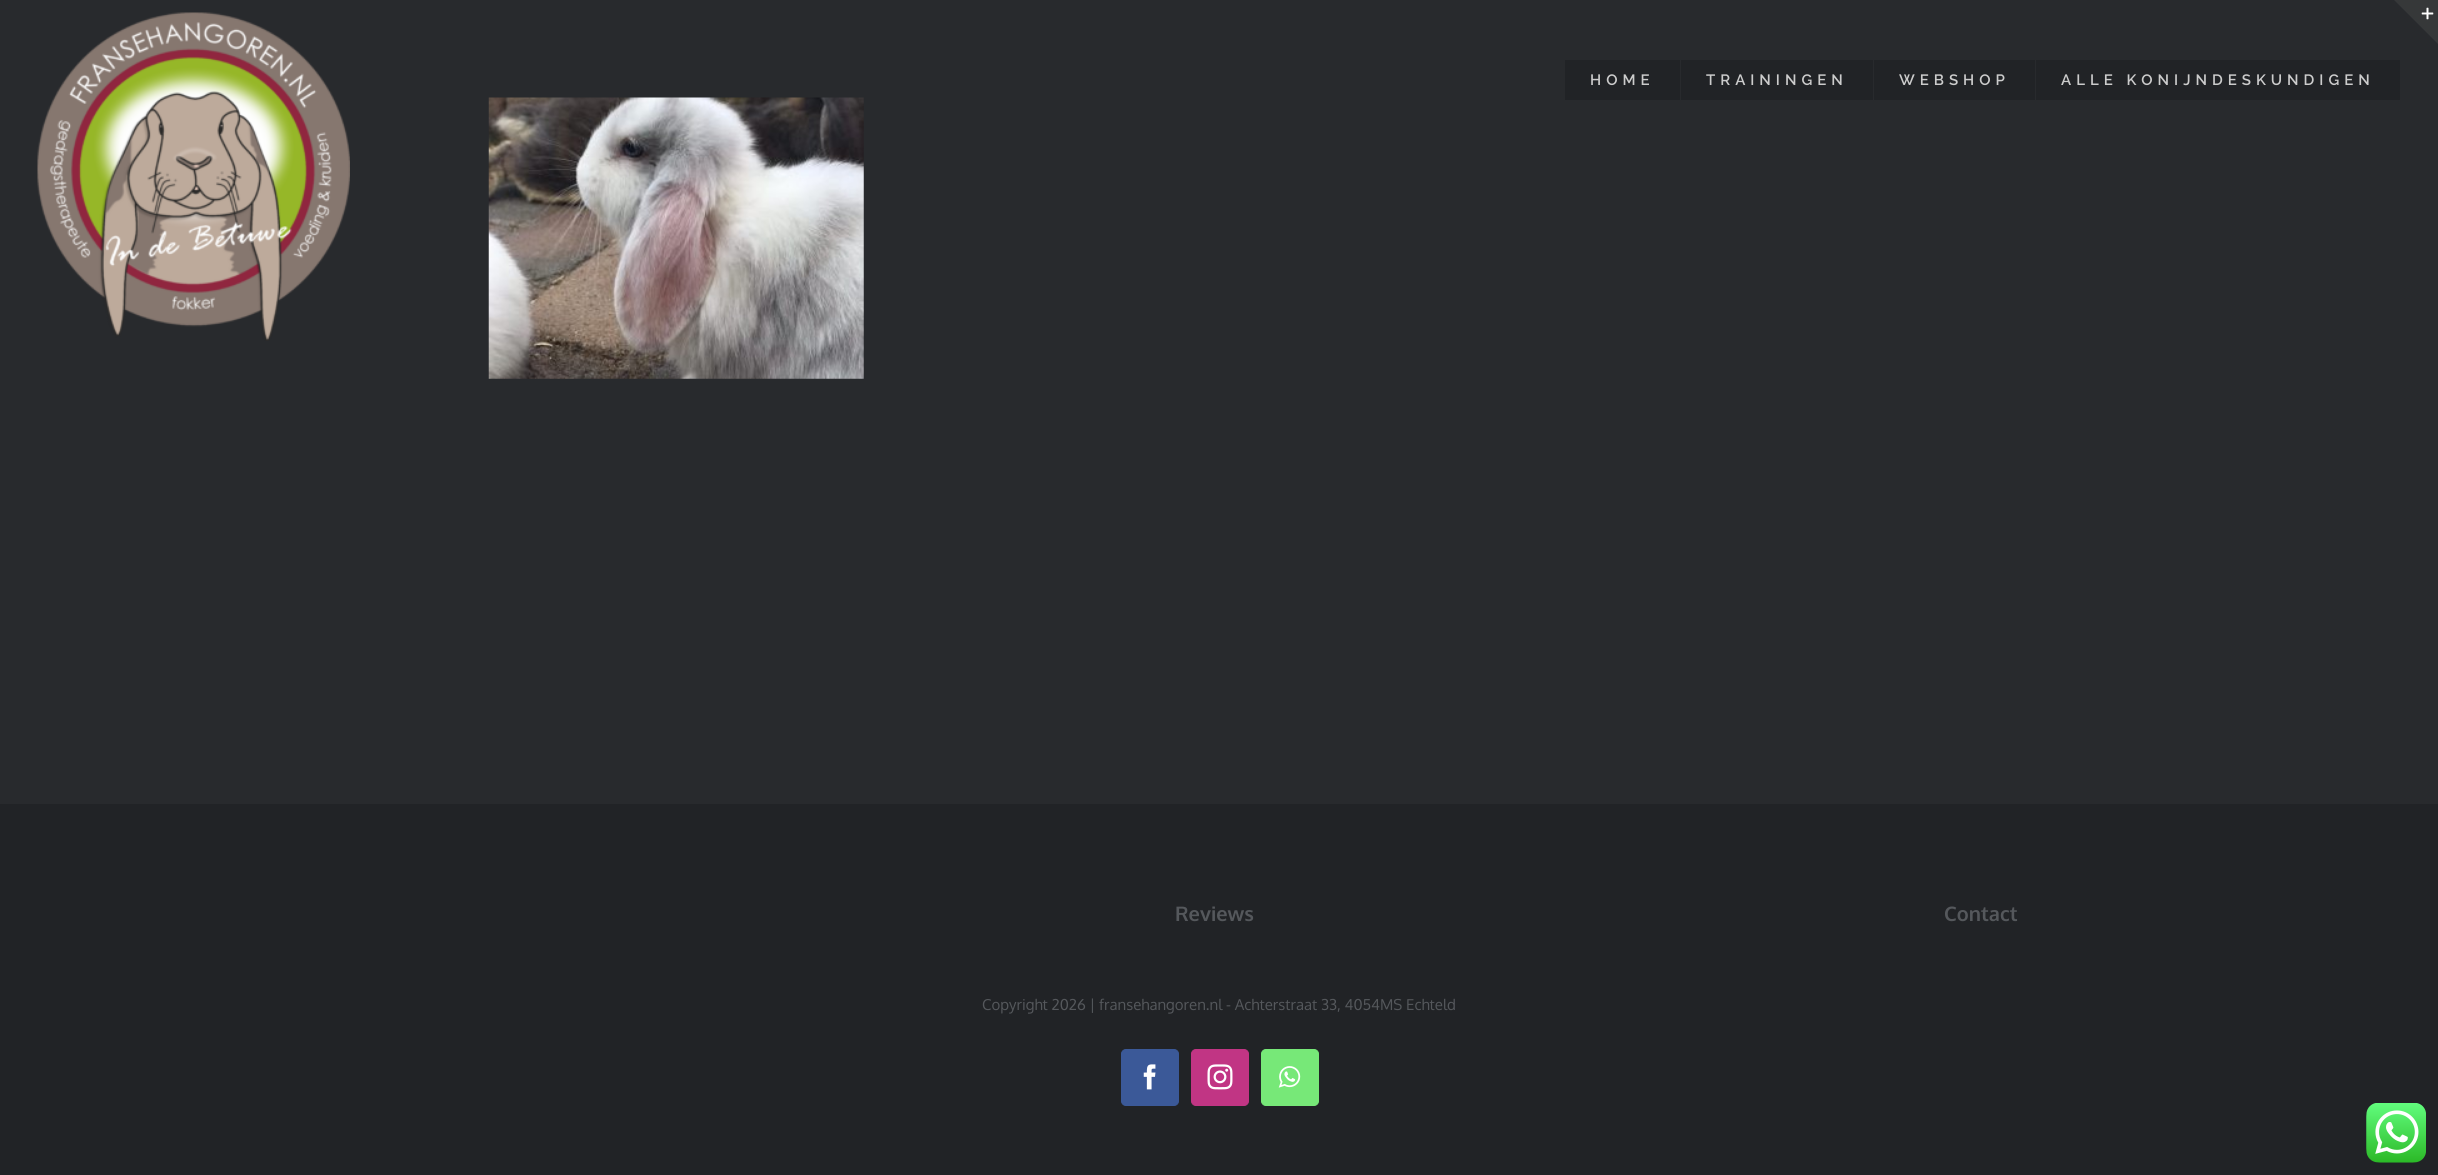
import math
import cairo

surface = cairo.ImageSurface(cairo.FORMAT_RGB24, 2438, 1175)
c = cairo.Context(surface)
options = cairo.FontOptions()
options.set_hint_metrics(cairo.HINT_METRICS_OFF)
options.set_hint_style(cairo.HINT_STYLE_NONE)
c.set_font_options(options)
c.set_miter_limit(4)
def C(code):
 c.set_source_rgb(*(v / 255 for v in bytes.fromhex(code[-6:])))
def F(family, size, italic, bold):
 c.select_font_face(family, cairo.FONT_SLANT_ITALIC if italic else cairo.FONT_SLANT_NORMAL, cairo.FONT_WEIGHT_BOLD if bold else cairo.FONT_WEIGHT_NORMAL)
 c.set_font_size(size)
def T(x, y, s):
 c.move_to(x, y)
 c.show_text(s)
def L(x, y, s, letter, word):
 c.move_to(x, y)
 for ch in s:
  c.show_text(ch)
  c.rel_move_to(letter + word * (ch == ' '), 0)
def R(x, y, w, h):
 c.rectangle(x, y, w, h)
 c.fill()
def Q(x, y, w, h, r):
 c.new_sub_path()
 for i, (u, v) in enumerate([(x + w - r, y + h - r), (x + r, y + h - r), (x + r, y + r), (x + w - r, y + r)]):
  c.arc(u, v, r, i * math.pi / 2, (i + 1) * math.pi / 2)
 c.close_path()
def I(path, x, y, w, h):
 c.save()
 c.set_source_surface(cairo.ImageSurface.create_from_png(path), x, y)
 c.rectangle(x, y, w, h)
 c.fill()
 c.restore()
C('282a2d')
c.paint()
C('363839')
c.new_path()
c.move_to(2394,0)
c.line_to(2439,0)
c.line_to(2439,45)
c.close_path()
c.fill()
I('1.png',2421,7,13,13)
I('2.png',37,12,313,329)
C('212326')
R(1565,60,115,40)
F('Raleway SemiBold',15,0,0)
C('cccccc')
L(1590,85,'HOME',5,0)
C('212326')
R(1681,60,192,40)
C('cccccc')
L(1706,85,'TRAININGEN',5,0)
C('212326')
R(1874,60,161,40)
C('cccccc')
L(1899,85,'WEBSHOP',5,0)
C('212326')
R(2036,60,364,40)
C('cccccc')
L(2061,85,'ALLE KONIJNDESKUNDIGEN',5,0)
I('3.png',488,97,376,282)
C('212326')
R(0,804,2438,371)
F('Oxygen',20,0,1)
C('55585c')
T(1175,921,'Reviews')
T(1944,921,'Contact')
F('Oxygen',15,0,0)
T(982,1010,'Copyright 2026 | fransehangoren.nl - Achterstraat 33, 4054MS Echteld')
C('3b5998')
Q(1121.5,1049.5,57,56,4.5)
c.fill_preserve()
c.set_line_width(1)
c.stroke()
I('4.png',1143,1064,13,26)
C('c13584')
Q(1191.5,1049.5,57,56,4.5)
c.fill_preserve()
c.stroke()
I('5.png',1207,1064,26,26)
C('77e878')
Q(1261.5,1049.5,57,56,4.5)
c.fill_preserve()
c.stroke()
I('6.png',1278,1066,23,22)
I('7.png',2366,1103,60,60)
surface.write_to_png('o.png')
